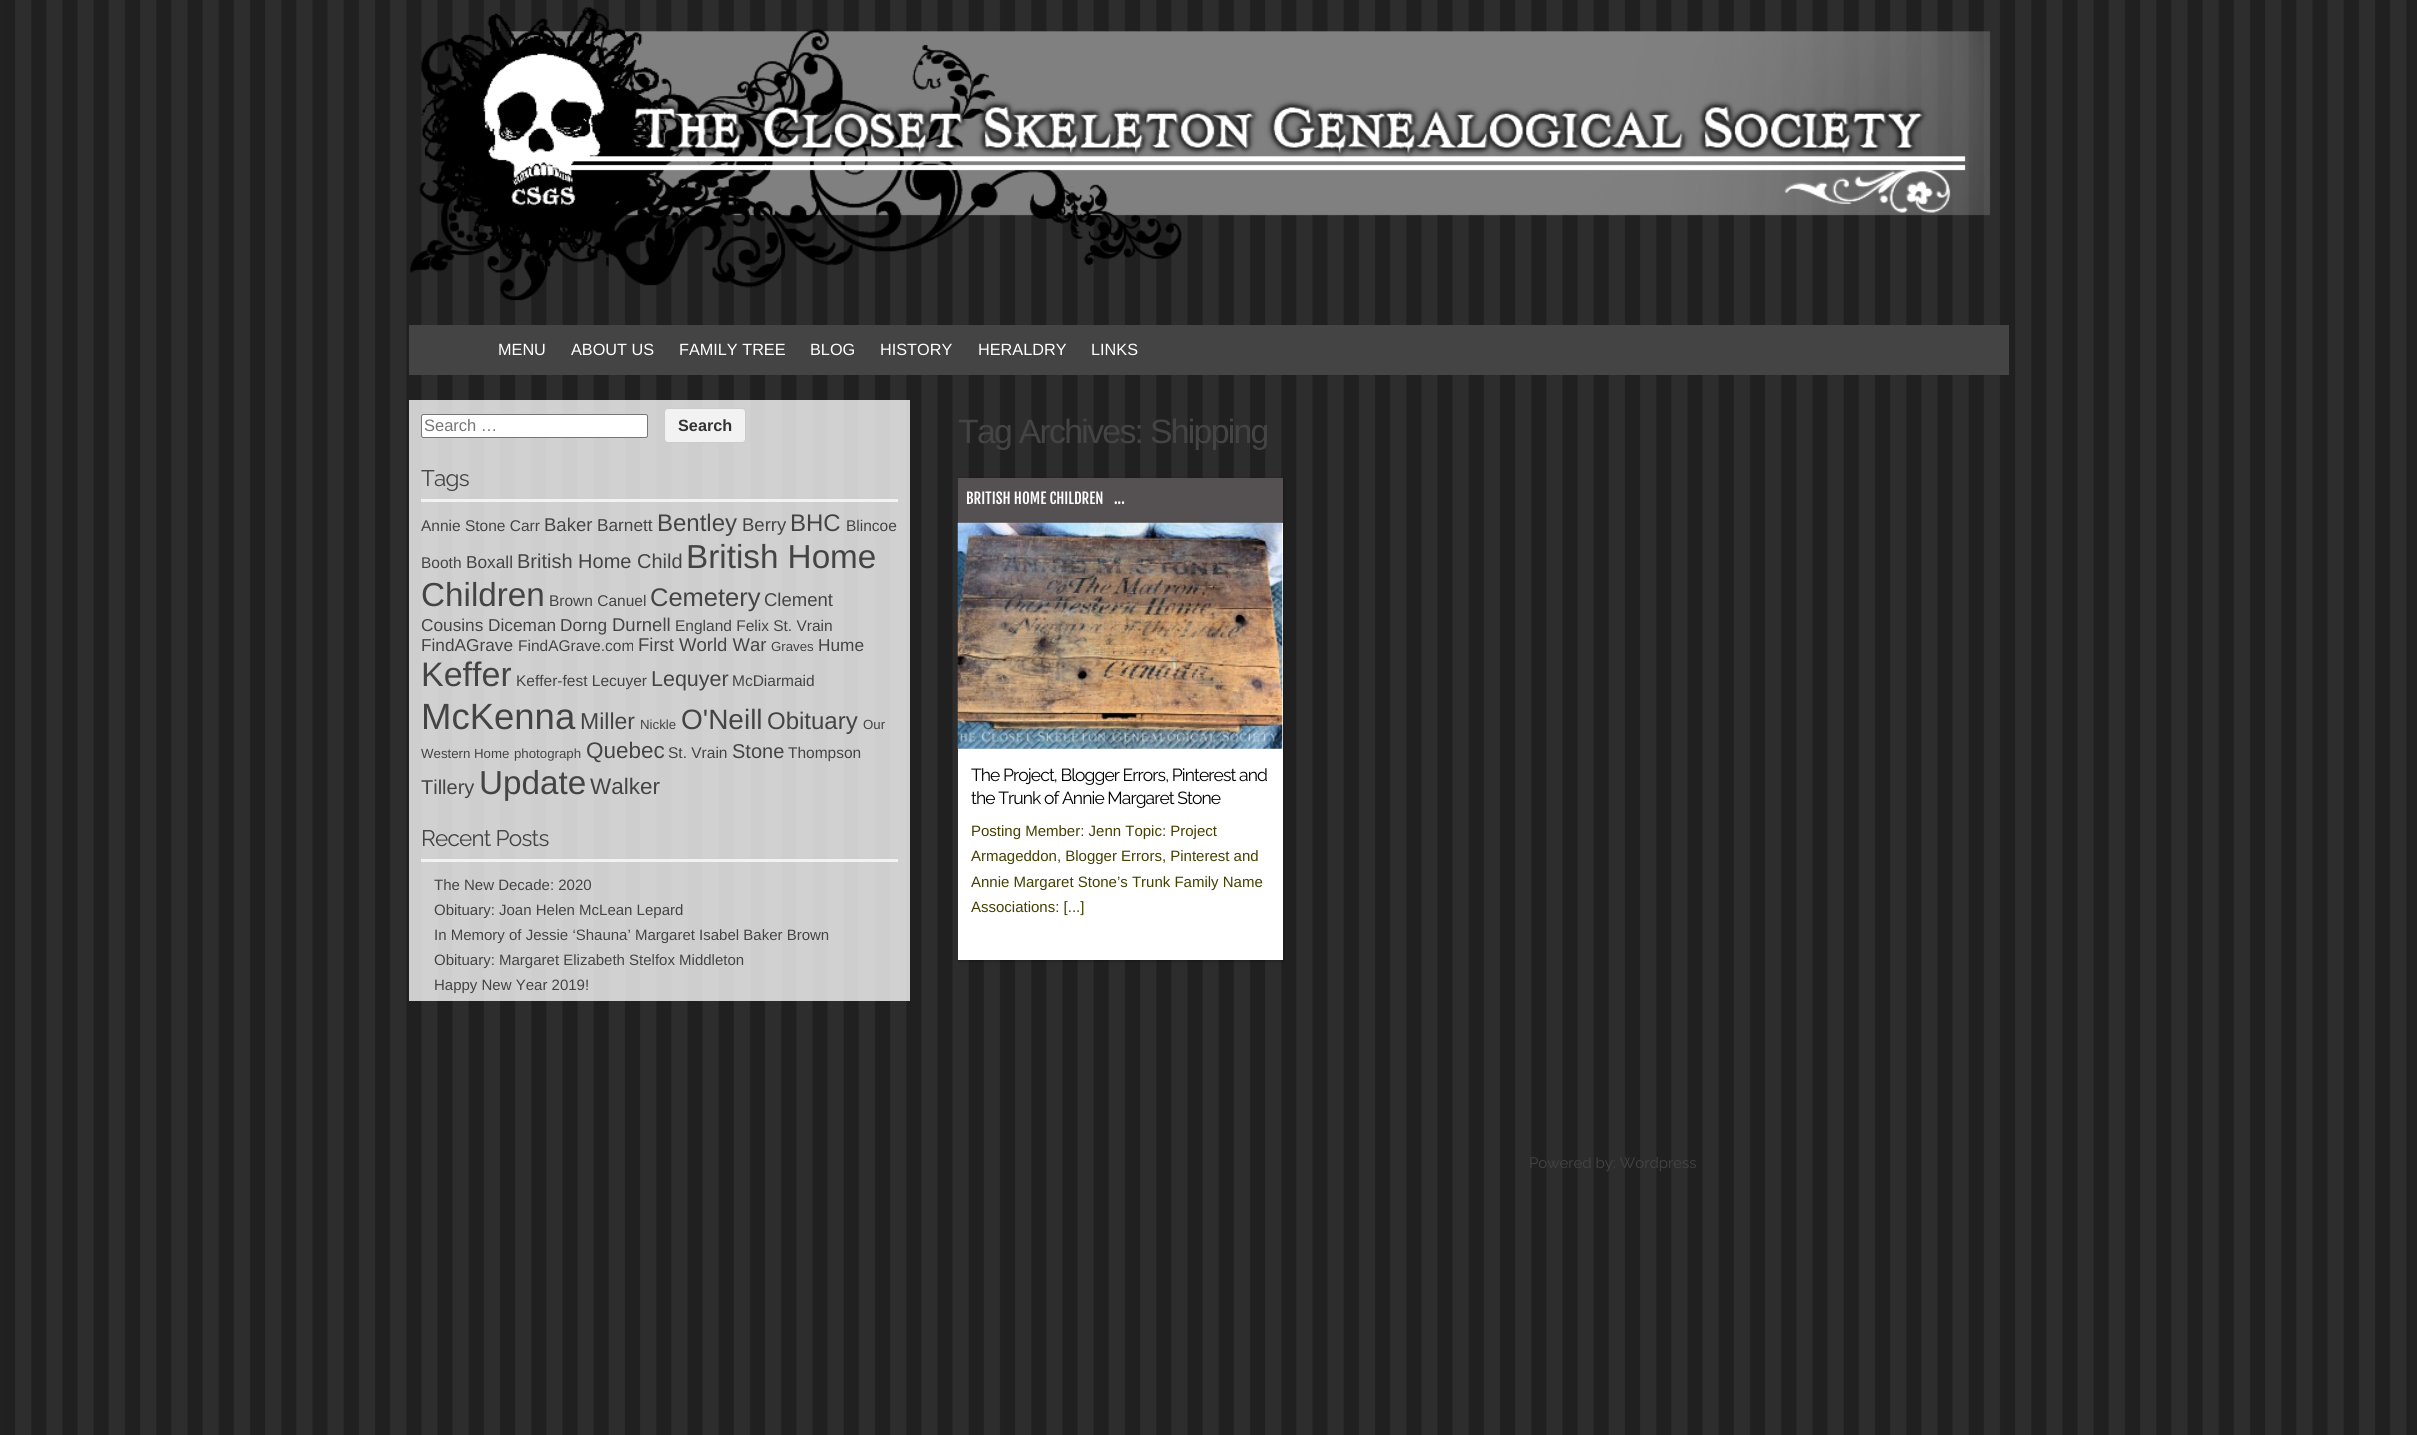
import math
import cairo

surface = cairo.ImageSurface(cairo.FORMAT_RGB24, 2417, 1435)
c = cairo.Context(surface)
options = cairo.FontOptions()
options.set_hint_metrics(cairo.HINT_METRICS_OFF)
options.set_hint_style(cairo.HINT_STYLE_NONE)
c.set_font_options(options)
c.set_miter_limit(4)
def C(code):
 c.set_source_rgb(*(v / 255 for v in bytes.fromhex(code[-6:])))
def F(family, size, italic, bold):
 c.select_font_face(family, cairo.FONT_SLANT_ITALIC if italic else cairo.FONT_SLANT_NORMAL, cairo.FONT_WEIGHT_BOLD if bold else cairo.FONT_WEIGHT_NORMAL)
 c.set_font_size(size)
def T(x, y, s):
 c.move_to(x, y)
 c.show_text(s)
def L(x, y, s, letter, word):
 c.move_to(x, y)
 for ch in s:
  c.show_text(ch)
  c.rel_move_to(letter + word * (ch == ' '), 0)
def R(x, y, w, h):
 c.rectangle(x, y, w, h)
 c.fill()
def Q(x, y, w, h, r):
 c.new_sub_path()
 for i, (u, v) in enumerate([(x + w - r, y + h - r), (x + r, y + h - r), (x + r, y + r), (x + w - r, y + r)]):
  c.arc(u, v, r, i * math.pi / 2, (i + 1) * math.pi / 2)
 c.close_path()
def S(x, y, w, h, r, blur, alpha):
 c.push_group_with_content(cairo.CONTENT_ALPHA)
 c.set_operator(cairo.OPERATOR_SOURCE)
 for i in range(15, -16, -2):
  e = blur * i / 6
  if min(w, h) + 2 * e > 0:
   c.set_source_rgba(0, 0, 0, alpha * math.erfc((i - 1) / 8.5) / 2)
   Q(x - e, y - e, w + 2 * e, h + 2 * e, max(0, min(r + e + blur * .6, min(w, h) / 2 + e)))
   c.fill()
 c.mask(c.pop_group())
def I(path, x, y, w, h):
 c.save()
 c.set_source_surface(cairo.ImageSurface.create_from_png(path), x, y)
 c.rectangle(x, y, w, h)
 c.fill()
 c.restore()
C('ffffff')
c.paint()
I('1.png',0,0,2417,1435)
I('2.png',410,7,1581,294)
C('444444')
R(409,325,1600,50)
F('Liberation Sans',16.25,0,0)
C('ffffff')
T(498,355,'MENU')
T(571,355,'ABOUT US')
T(679,355,'FAMILY TREE')
T(810,355,'BLOG')
T(880,355,'HISTORY')
T(978,355,'HERALDRY')
T(1091,355,'LINKS')
c.set_source_rgba(0.98,0.98,0.98,0.8)
R(409,400,501,601)
C('ffffff')
Q(421.5,414.5,226,23,2)
c.fill_preserve()
C('767676')
c.set_line_width(1)
c.stroke()
F('Liberation Sans',16.5,0,0)
C('757575')
T(424,431,'Search …')
C('f2f2f2')
Q(664.5,408.5,81,34,3.5)
c.fill_preserve()
C('cccccc')
c.stroke()
F('Liberation Sans',16.25,0,1)
C('333333')
T(678,431,'Search')
C('f1f2f4')
R(421,499,477,3)
F('Raleway',22.5,0,0)
C('444444')
L(421,486,'Tags',-.75,0)
F('Liberation Sans',15.5,0,0)
T(421,531,'Annie Stone Carr')
F('Liberation Sans',18.5,0,0)
T(544,531,'Baker')
F('Liberation Sans',17.25,0,0)
T(597,531,'Barnett')
F('Liberation Sans',24,0,0)
T(657,531,'Bentley')
F('Liberation Sans',18.5,0,0)
T(742,531,'Berry')
F('Liberation Sans',24,0,0)
T(790,531,'BHC')
F('Liberation Sans',15.5,0,0)
T(846,531,'Blincoe')
T(421,568,'Booth')
F('Liberation Sans',17.25,0,0)
T(466,568,'Boxall')
F('Liberation Sans',20,0,0)
T(517,568,'British Home Child')
F('Liberation Sans',33.25,0,0)
T(686,568,'British Home')
T(421,606,'Children')
F('Liberation Sans',15.5,0,0)
T(549,606,'Brown Canuel')
F('Liberation Sans',25.5,0,0)
T(650,606,'Cemetery')
F('Liberation Sans',18.5,0,0)
T(764,606,'Clement')
F('Liberation Sans',17.25,0,0)
T(421,631,'Cousins')
T(488,631,'Diceman')
T(560,631,'Dorng')
F('Liberation Sans',18.5,0,0)
T(612,631,'Durnell')
F('Liberation Sans',15.5,0,0)
T(675,631,'England Felix St. Vrain')
F('Liberation Sans',17.25,0,0)
T(421,651,'FindAGrave')
F('Liberation Sans',15.5,0,0)
T(518,651,'FindAGrave.com')
F('Liberation Sans',18.5,0,0)
T(638,651,'First World War')
F('Liberation Sans',13.25,0,0)
T(771,651,'Graves')
F('Liberation Sans',17.25,0,0)
T(818,651,'Hume')
F('Liberation Sans',34,0,0)
T(421,686,'Keffer')
F('Liberation Sans',15.5,0,0)
T(516,686,'Keffer-fest Lecuyer')
F('Liberation Sans',21.5,0,0)
T(651,686,'Lequyer')
F('Liberation Sans',15.5,0,0)
T(732,686,'McDiarmaid')
F('Liberation Sans',36.5,0,0)
T(421,729,'McKenna')
F('Liberation Sans',23,0,0)
T(580,729,'Miller')
F('Liberation Sans',13.25,0,0)
T(640,729,'Nickle')
F('Liberation Sans',28,0,0)
T(681,729,'O\'Neill')
F('Liberation Sans',24,0,0)
T(767,729,'Obituary')
F('Liberation Sans',13.25,0,0)
T(863,729,'Our')
T(421,758,'Western Home')
T(514,758,'photograph')
F('Liberation Sans',22.5,0,0)
T(586,758,'Quebec')
F('Liberation Sans',15.5,0,0)
T(668,758,'St. Vrain')
F('Liberation Sans',20,0,0)
T(732,758,'Stone')
F('Liberation Sans',15.5,0,0)
T(788,758,'Thompson')
F('Liberation Sans',20,0,0)
T(421,794,'Tillery')
F('Liberation Sans',33.25,0,0)
T(479,794,'Update')
F('Liberation Sans',22.5,0,0)
T(590,794,'Walker')
C('f1f2f4')
R(421,859,477,3)
F('Raleway',22.5,0,0)
C('444444')
L(421,846,'Recent Posts',-.75,0)
F('Liberation Sans',15,0,0)
T(434,890,'The New Decade: 2020')
T(434,915,'Obituary: Joan Helen McLean Lepard')
T(434,940,'In Memory of Jessie ‘Shauna’ Margaret Isabel Baker Brown')
T(434,965,'Obituary: Margaret Elizabeth Stelfox Middleton')
T(434,990,'Happy New Year 2019!')
F('Liberation Sans',33.75,0,0)
L(958,443,'Tag Archives: Shipping',-1.7,0)
c.save()
c.rectangle(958,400,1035,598)
c.clip()
C('000000')
S(958,479,325,45,0,2,.3)
c.restore()
C('555152')
R(958,478,325,45)
F('Fjalla One',15,0,0)
C('ffffff')
T(966,504,'BRITISH HOME CHILDREN')
T(1114,504,'...')
c.save()
c.rectangle(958,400,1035,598)
c.clip()
C('000000')
S(958,524,325,437,0,2,.3)
c.restore()
R(958,523,325,437)
I('3.png',957,522,326,227)
F('Raleway',17.5,0,0)
C('000000')
L(971,781,'The Project, Blogger Errors, Pinterest and',-.9,0)
L(971,804,'the Trunk of Annie Margaret Stone',-.9,0)
F('Liberation Sans',15,0,0)
C('444000')
T(971,836,'Posting Member: Jenn Topic: Project')
T(971,861,'Armageddon, Blogger Errors, Pinterest and')
T(971,887,'Annie Margaret Stone’s Trunk Family Name')
T(971,912,'Associations: [...]')
F('Raleway',15,0,0)
C('444444')
T(1529,1168,'Powered by: Wordpress')
surface.write_to_png('o.png')
